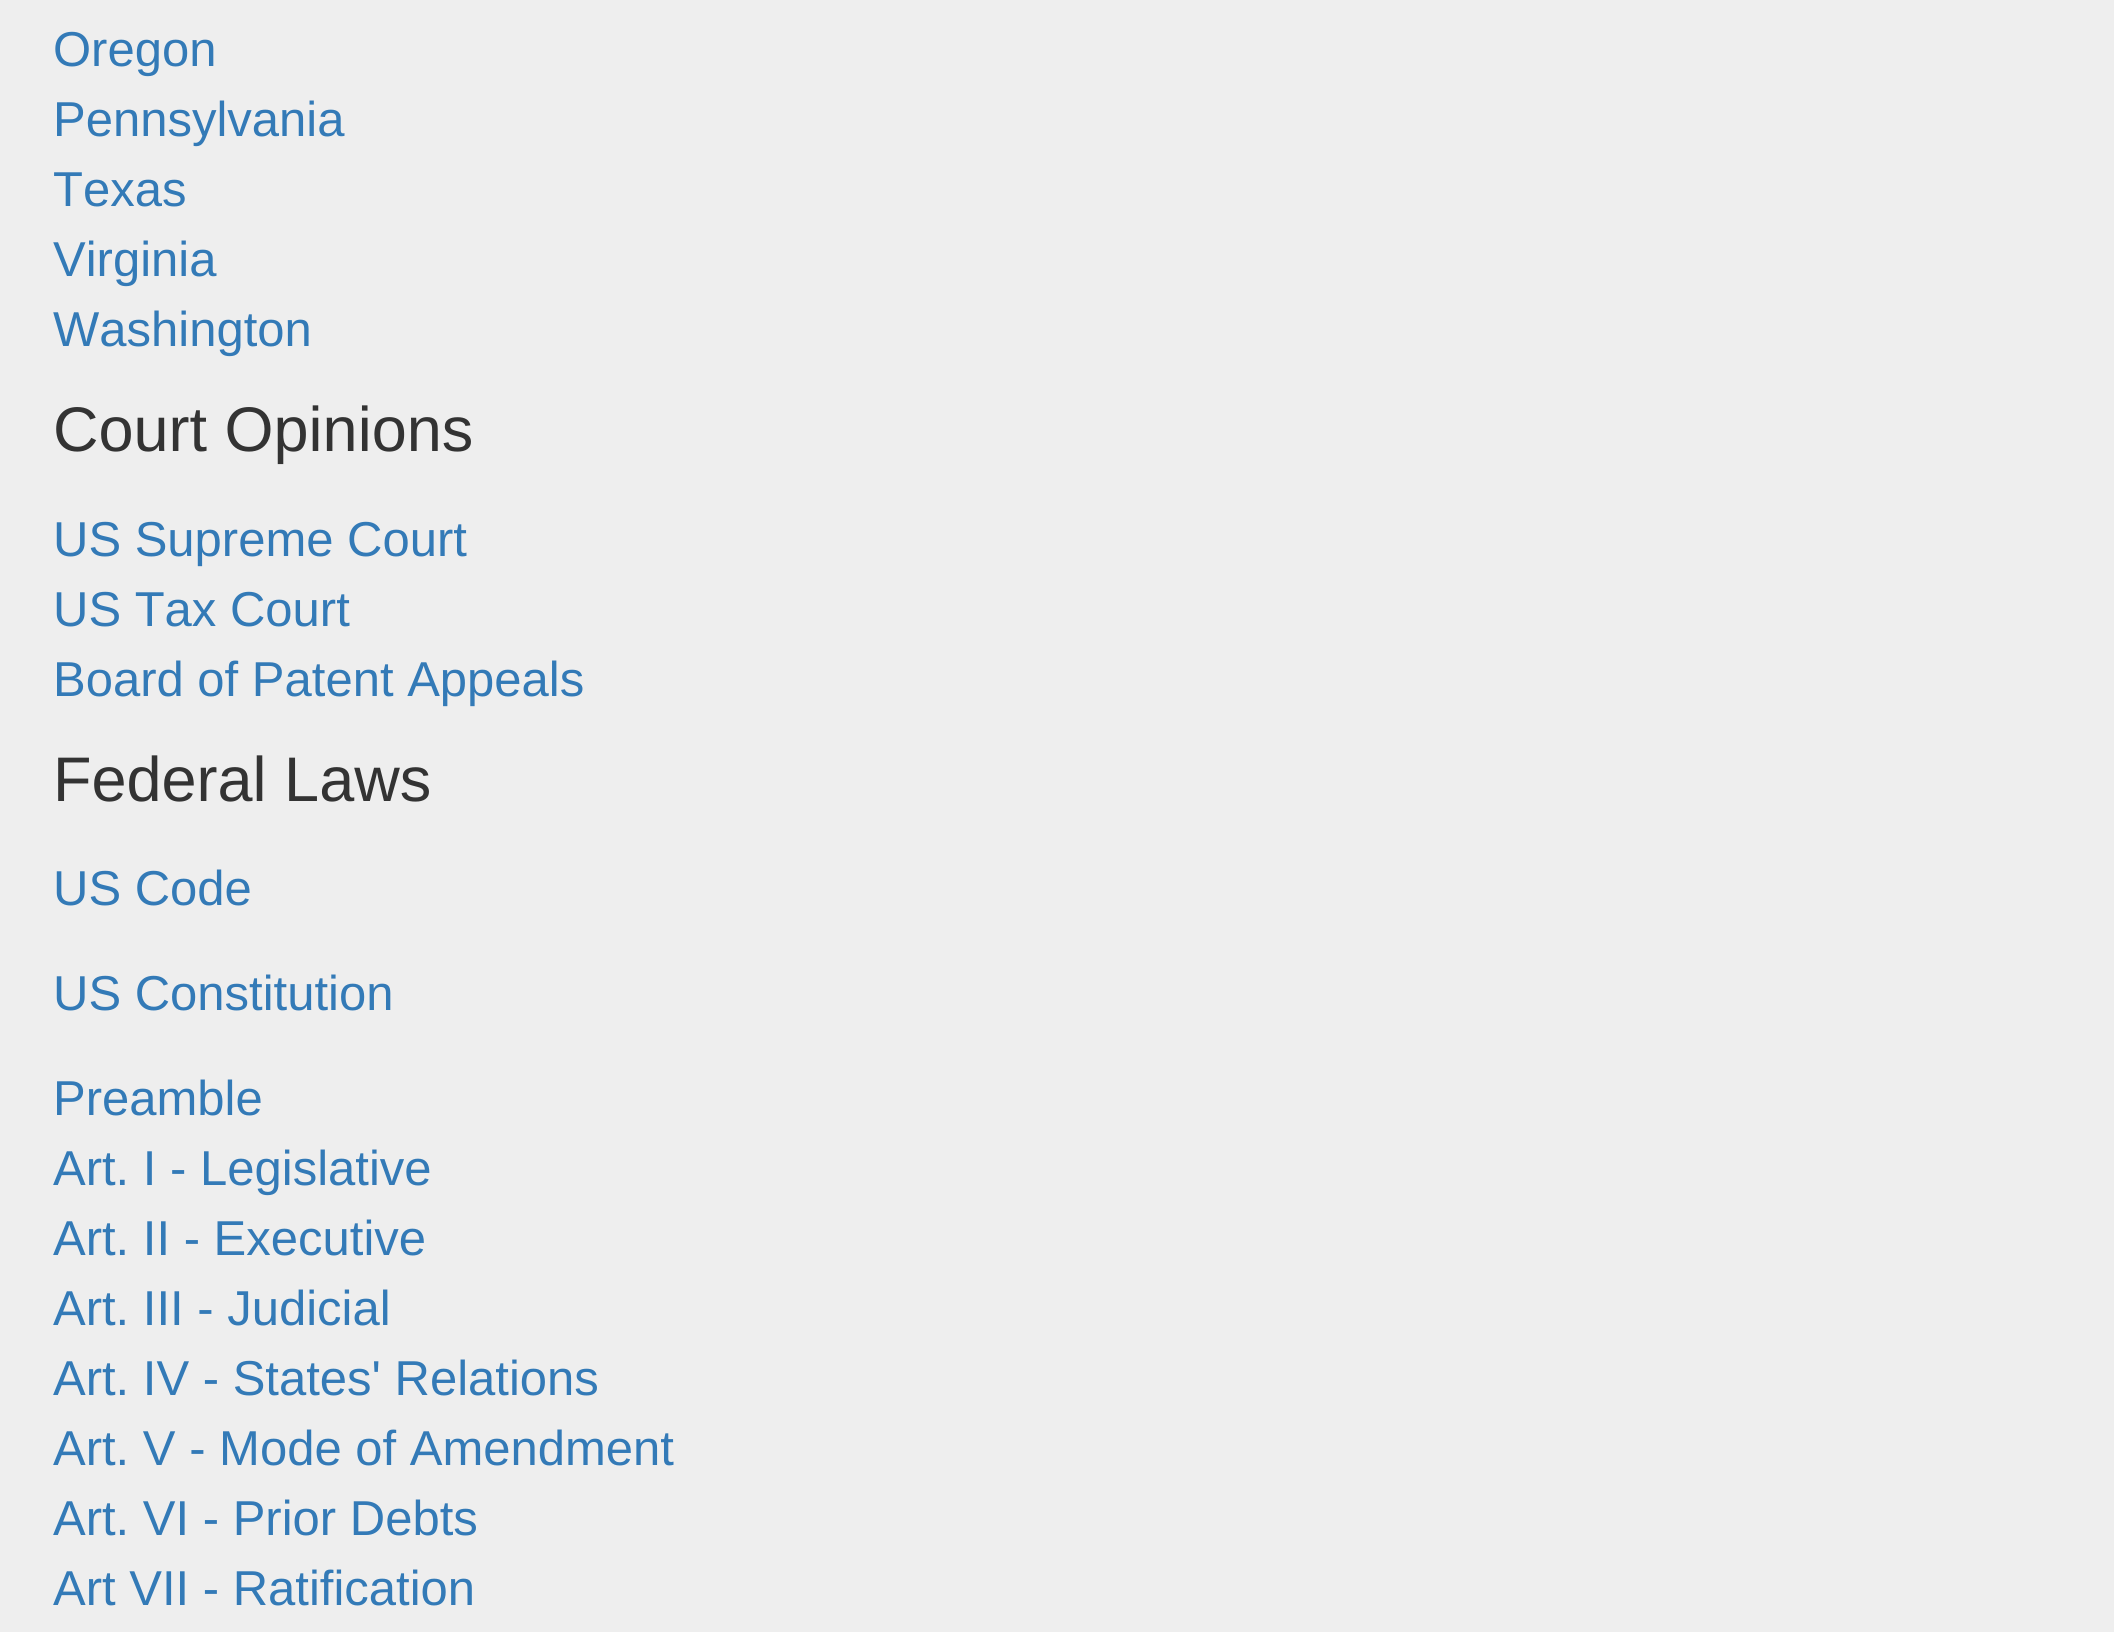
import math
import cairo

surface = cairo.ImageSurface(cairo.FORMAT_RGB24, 2114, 1632)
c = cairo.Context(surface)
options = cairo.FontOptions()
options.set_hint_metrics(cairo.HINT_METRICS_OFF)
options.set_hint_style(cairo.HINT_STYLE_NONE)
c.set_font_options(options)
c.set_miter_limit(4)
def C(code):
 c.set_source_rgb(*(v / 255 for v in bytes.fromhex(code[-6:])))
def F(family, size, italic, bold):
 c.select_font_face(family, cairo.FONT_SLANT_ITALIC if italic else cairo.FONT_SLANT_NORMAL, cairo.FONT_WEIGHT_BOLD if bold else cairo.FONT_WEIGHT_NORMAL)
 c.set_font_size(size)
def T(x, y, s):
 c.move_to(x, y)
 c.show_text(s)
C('eeeeee')
c.paint()
F('Liberation Sans',49,0,0)
C('337ab7')
T(53,66,'Oregon')
T(53,136,'Pennsylvania')
T(53,206,'Texas')
T(53,276,'Virginia')
T(53,346,'Washington')
F('Liberation Sans',63,0,0)
C('333333')
T(53,451,'Court Opinions')
F('Liberation Sans',49,0,0)
C('337ab7')
T(53,556,'US Supreme Court')
T(53,626,'US Tax Court')
T(53,696,'Board of Patent Appeals')
F('Liberation Sans',63,0,0)
C('333333')
T(53,801,'Federal Laws')
F('Liberation Sans',49,0,0)
C('337ab7')
T(53,905,'US Code')
T(53,1010,'US Constitution')
T(53,1115,'Preamble')
T(53,1185,'Art. I - Legislative')
T(53,1255,'Art. II - Executive')
T(53,1325,'Art. III - Judicial')
T(53,1395,'Art. IV - States\' Relations')
T(53,1465,'Art. V - Mode of Amendment')
T(53,1535,'Art. VI - Prior Debts')
T(53,1605,'Art VII - Ratification')
surface.write_to_png('o.png')
